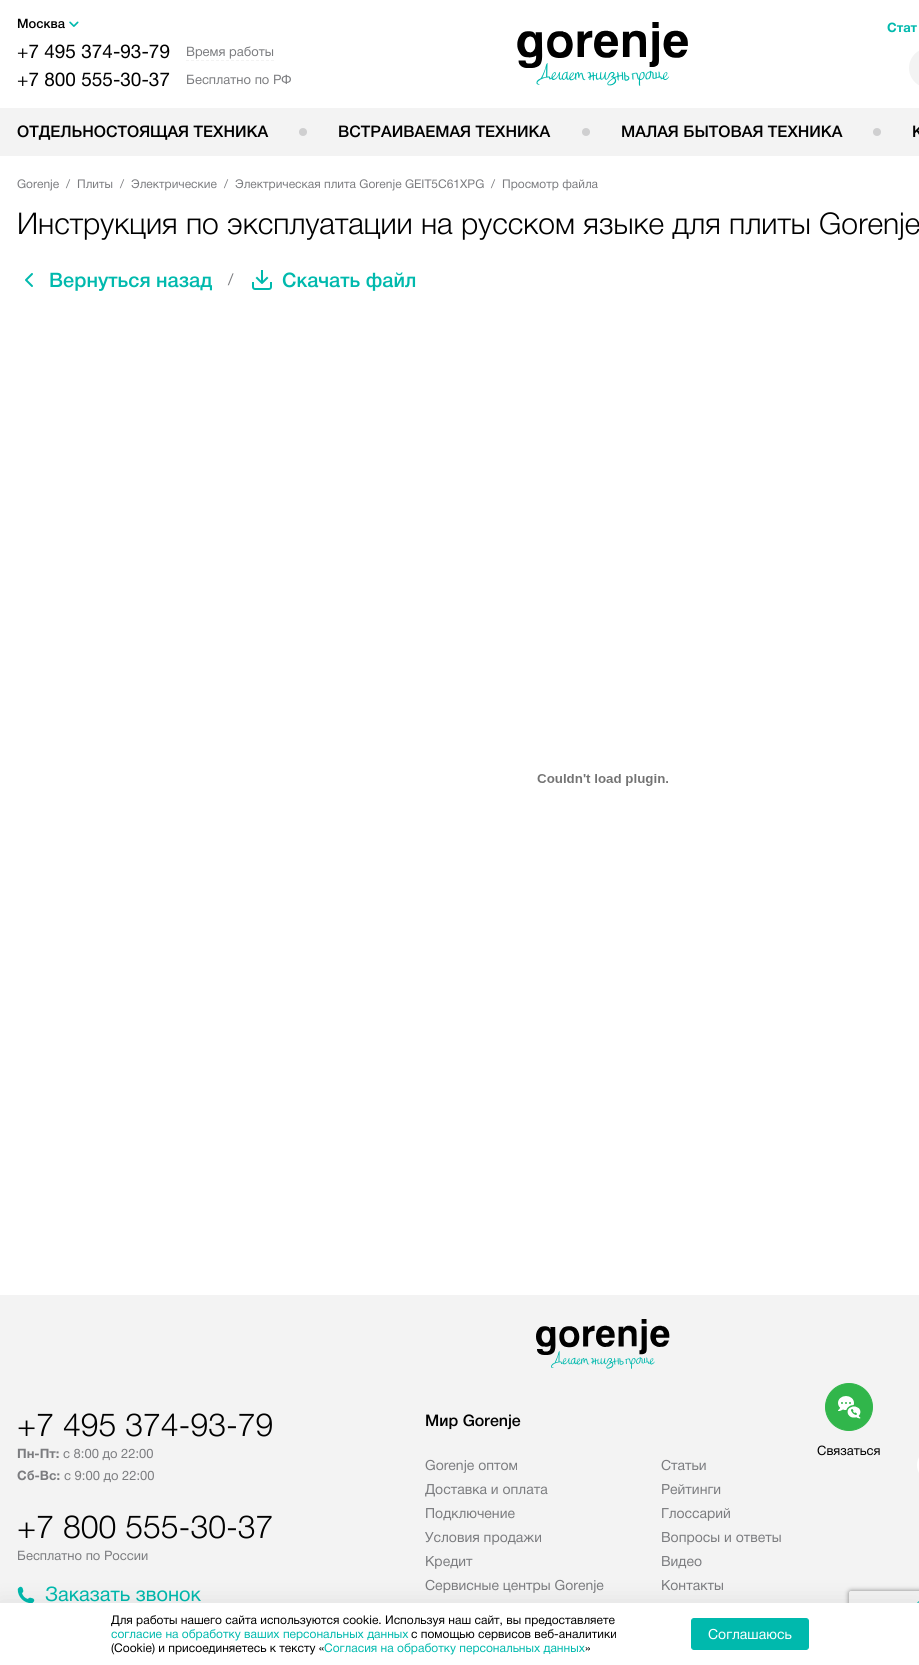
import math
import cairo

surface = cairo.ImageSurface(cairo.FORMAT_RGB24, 919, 1665)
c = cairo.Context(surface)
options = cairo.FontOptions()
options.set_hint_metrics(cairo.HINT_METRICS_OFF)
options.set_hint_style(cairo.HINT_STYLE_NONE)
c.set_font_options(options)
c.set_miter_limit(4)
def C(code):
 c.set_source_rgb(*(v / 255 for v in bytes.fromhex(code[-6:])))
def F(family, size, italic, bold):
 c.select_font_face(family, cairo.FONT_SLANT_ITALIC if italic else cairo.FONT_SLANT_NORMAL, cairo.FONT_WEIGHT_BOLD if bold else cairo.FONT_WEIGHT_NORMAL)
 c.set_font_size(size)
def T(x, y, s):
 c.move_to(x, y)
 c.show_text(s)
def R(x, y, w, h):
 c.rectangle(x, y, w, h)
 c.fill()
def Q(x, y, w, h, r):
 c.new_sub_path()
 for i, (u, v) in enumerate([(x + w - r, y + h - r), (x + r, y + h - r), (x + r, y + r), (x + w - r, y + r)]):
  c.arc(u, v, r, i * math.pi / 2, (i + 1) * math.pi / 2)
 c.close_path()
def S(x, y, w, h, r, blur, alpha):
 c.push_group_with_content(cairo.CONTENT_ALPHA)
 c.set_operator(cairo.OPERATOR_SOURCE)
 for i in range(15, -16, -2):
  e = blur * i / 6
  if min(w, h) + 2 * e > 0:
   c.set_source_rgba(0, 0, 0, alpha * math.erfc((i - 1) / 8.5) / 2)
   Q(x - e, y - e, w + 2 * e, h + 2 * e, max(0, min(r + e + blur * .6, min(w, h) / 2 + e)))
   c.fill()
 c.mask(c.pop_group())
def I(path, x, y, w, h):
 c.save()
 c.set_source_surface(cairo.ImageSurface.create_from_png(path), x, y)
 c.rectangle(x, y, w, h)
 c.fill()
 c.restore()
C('ffffff')
c.paint()
F('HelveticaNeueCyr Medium',13,0,0)
C('000000')
T(17,28,'Москва')
I('1.png',69,21,10,6)
F('HelveticaNeueCyr',19,0,0)
T(17,58,'+7 495 374-93-79')
F('HelveticaNeueCyr',13,0,0)
C('7b7c7f')
T(186,56,'Время работы')
c.new_path()
c.move_to(186,60.5)
c.line_to(274,60.5)
C('f3f3f3')
c.set_line_width(1)
c.set_dash([3,2])
c.stroke()
F('HelveticaNeueCyr',19,0,0)
C('000000')
T(17,86,'+7 800 555-30-37')
F('HelveticaNeueCyr',13,0,0)
C('7b7c7f')
T(186,84,'Бесплатно по РФ')
I('2.png',517,22,171,64)
F('HelveticaNeueCyr',13,0,1)
C('00b9ad')
T(887,32,'Стат')
C('f3f3f3')
Q(909,48,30,40,20)
c.fill()
R(0,108,919,48)
F('HelveticaNeueCyr Medium',16,0,0)
C('000000')
T(17,137,'ОТДЕЛЬНОСТОЯЩАЯ ТЕХНИКА')
C('cfcfd0')
c.new_path()
c.arc(303,132,4,0,2 * math.pi)
c.fill()
C('000000')
T(338,137,'ВСТРАИВАЕМАЯ ТЕХНИКА')
C('cfcfd0')
c.new_path()
c.arc(586,132,4,0,2 * math.pi)
c.fill()
C('000000')
T(621,137,'МАЛАЯ БЫТОВАЯ ТЕХНИКА')
C('cfcfd0')
c.new_path()
c.arc(877,132,4,0,2 * math.pi)
c.fill()
C('000000')
T(912,137,'К')
F('HelveticaNeueCyr',12,0,0)
C('7b7c7f')
T(17,188,'Gorenje')
T(66,188,'/')
T(77,188,'Плиты')
T(120,188,'/')
T(131,188,'Электрические')
T(224,188,'/')
T(235,188,'Электрическая плита Gorenje GEIT5C61XPG')
T(491,188,'/')
T(502,188,'Просмотр файла')
F('HelveticaNeueCyr Light',30,0,0)
C('000000')
T(17,234,'Инструкция по эксплуатации на русском языке для плиты Gorenje')
c.new_path()
c.move_to(32,286)
c.line_to(26,280)
c.line_to(32,274)
C('00b9ad')
c.set_line_width(2)
c.set_line_cap(cairo.LINE_CAP_ROUND)
c.set_line_join(cairo.LINE_JOIN_ROUND)
c.set_dash([])
c.stroke()
F('HelveticaNeueCyr Medium',20,0,0)
T(49,287,'Вернуться назад')
F('HelveticaNeueCyr',16,0,0)
C('7b7c7f')
T(228,285,'/')
I('3.png',252,270,20,20)
F('HelveticaNeueCyr Medium',20,0,0)
C('00b9ad')
T(282,287,'Скачать файл')
I('4.png',537,774,131,12)
C('f3f3f3')
R(0,1295,919,308)
I('5.png',536,1319,134,50)
F('HelveticaNeueCyr Light',32,0,0)
C('000000')
T(17,1436,'+7 495 374-93-79')
F('HelveticaNeueCyr',13,0,1)
C('7b7c7f')
T(17,1458,'Пн-Пт:')
F('HelveticaNeueCyr',13,0,0)
T(63,1458,'с 8:00 до 22:00')
F('HelveticaNeueCyr',13,0,1)
T(17,1480,'Сб-Вс:')
F('HelveticaNeueCyr',13,0,0)
T(64,1480,'с 9:00 до 22:00')
F('HelveticaNeueCyr Light',32,0,0)
C('000000')
T(17,1538,'+7 800 555-30-37')
F('HelveticaNeueCyr',13,0,0)
C('7b7c7f')
T(17,1560,'Бесплатно по России')
I('6.png',17,1586,18,17)
F('HelveticaNeueCyr',20,0,0)
C('00b9ad')
T(45,1601,'Заказать звонок')
F('HelveticaNeueCyr Medium',16,0,0)
C('000000')
T(425,1426,'Мир Gorenje')
F('HelveticaNeueCyr',14,0,0)
C('7b7c7f')
T(425,1470,'Gorenje оптом')
T(425,1494,'Доставка и оплата')
T(425,1518,'Подключение')
T(425,1542,'Условия продажи')
T(425,1566,'Кредит')
T(425,1590,'Сервисные центры Gorenje')
T(661,1470,'Cтатьи')
T(661,1494,'Рейтинги')
T(661,1518,'Глоссарий')
T(661,1542,'Вопросы и ответы')
T(661,1566,'Видео')
T(661,1590,'Контакты')
C('ffffff')
Q(917,1449,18,32,16)
c.fill()
Q(917.5,1601.5,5,35,2.5)
C('00b9ad')
c.set_line_width(1)
c.set_line_cap(cairo.LINE_CAP_BUTT)
c.set_line_join(cairo.LINE_JOIN_MITER)
c.stroke()
C('31b64b')
c.arc(849,1407,23.5,0,2 * math.pi)
c.fill_preserve()
c.stroke()
I('7.png',838,1396,23,23)
F('HelveticaNeueCyr',13,0,0)
C('000000')
T(817,1455,'Связаться')
C('000000')
S(0,1605,919,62,0,12,.1)
c.save()
c.set_fill_rule(cairo.FILL_RULE_EVEN_ODD)
c.new_path()
c.move_to(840,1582)
c.line_to(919,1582)
c.line_to(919,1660)
c.line_to(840,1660)
c.close_path()
c.move_to(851,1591)
c.line_to(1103,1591)
c.curve_to(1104,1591,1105,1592,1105,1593)
c.line_to(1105,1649)
c.curve_to(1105,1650,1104,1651,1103,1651)
c.line_to(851,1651)
c.curve_to(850,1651,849,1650,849,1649)
c.line_to(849,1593)
c.curve_to(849,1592,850,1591,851,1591)
c.close_path()
c.clip()
C('808080')
S(849,1591,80,60,2,2.5,1)
c.restore()
C('ffffff')
R(0,1603,919,62)
F('HelveticaNeueCyr',12,0,0)
C('000000')
T(111,1624,'Для работы нашего сайта используются cookie. Используя наш сайт, вы предоставляете')
C('00b9ad')
T(111,1638,'согласие на обработку ваших персональных данных')
C('000000')
T(411,1638,'с помощью сервисов веб-аналитики')
T(111,1652,'(Cookie) и присоединяетесь к тексту «')
C('00b9ad')
T(324,1652,'Согласия на обработку персональных данных')
C('000000')
T(585,1652,'»')
C('00b9ad')
Q(691.5,1618.5,117,31,2.5)
c.fill_preserve()
c.stroke()
F('HelveticaNeueCyr',14,0,0)
C('ffffff')
T(708,1639,'Соглашаюсь')
surface.write_to_png('o.png')
